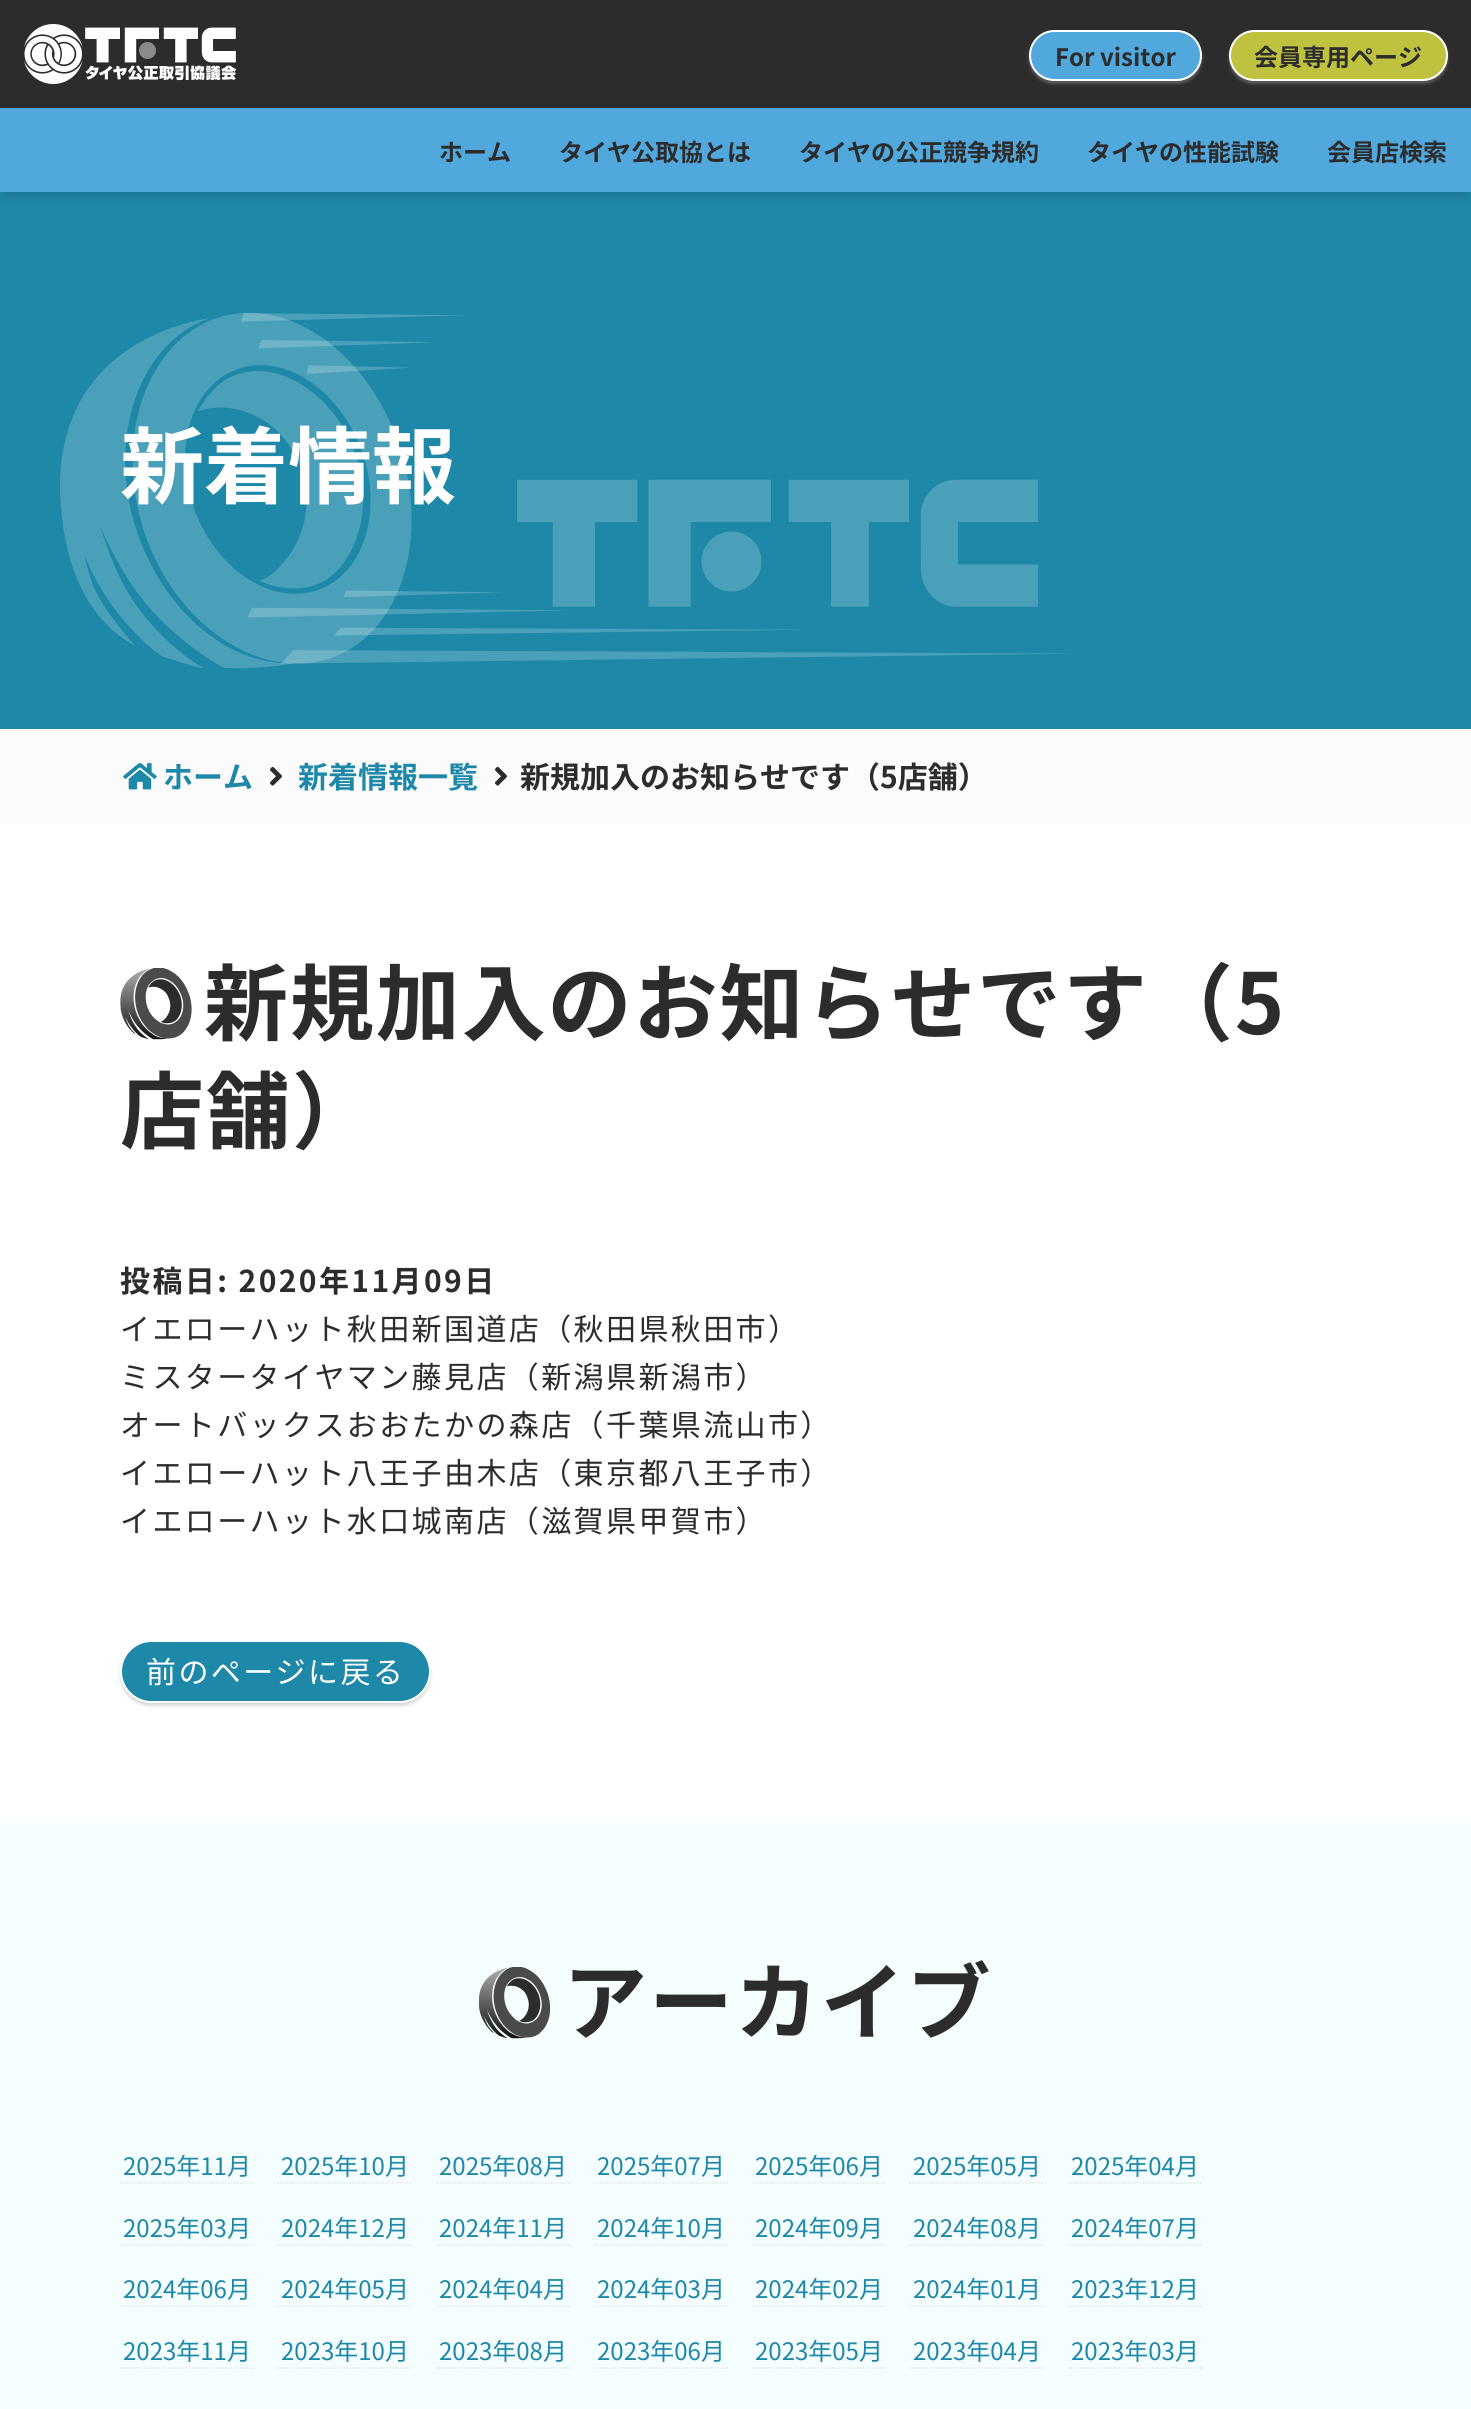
import math
import cairo

surface = cairo.ImageSurface(cairo.FORMAT_RGB24, 1471, 2409)
c = cairo.Context(surface)
options = cairo.FontOptions()
options.set_hint_metrics(cairo.HINT_METRICS_OFF)
options.set_hint_style(cairo.HINT_STYLE_NONE)
c.set_font_options(options)
c.set_miter_limit(4)
def C(code):
 c.set_source_rgb(*(v / 255 for v in bytes.fromhex(code[-6:])))
def F(family, size, italic, bold):
 c.select_font_face(family, cairo.FONT_SLANT_ITALIC if italic else cairo.FONT_SLANT_NORMAL, cairo.FONT_WEIGHT_BOLD if bold else cairo.FONT_WEIGHT_NORMAL)
 c.set_font_size(size)
def T(x, y, s):
 c.move_to(x, y)
 c.show_text(s)
def L(x, y, s, letter, word):
 c.move_to(x, y)
 for ch in s:
  c.show_text(ch)
  c.rel_move_to(letter + word * (ch == ' '), 0)
def R(x, y, w, h):
 c.rectangle(x, y, w, h)
 c.fill()
def Q(x, y, w, h, r):
 c.new_sub_path()
 for i, (u, v) in enumerate([(x + w - r, y + h - r), (x + r, y + h - r), (x + r, y + r), (x + w - r, y + r)]):
  c.arc(u, v, r, i * math.pi / 2, (i + 1) * math.pi / 2)
 c.close_path()
def S(x, y, w, h, r, blur, alpha):
 c.push_group_with_content(cairo.CONTENT_ALPHA)
 c.set_operator(cairo.OPERATOR_SOURCE)
 for i in range(15, -16, -2):
  e = blur * i / 6
  if min(w, h) + 2 * e > 0:
   c.set_source_rgba(0, 0, 0, alpha * math.erfc((i - 1) / 8.5) / 2)
   Q(x - e, y - e, w + 2 * e, h + 2 * e, max(0, min(r + e + blur * .6, min(w, h) / 2 + e)))
   c.fill()
 c.mask(c.pop_group())
def I(path, x, y, w, h):
 c.save()
 c.set_source_surface(cairo.ImageSurface.create_from_png(path), x, y)
 c.rectangle(x, y, w, h)
 c.fill()
 c.restore()
C('ffffff')
c.paint()
C('1e88a8')
R(0,192,1471,537)
C('000000')
S(6,14,1460,180,0,7.5,.2)
C('2c2c2c')
R(0,0,1471,108)
I('1.png',24,24,213,60)
C('51a8dd')
R(0,108,1471,84)
C('a0a0a0')
S(1029,33,173,51,25.5,1.5,.4)
C('51a8dd')
Q(1030,31,171,49,24.5)
c.fill_preserve()
C('ffffff')
c.stroke()
F('Noto Sans JP',24,0,1)
C('2c2c2c')
T(1055,66,'For visitor')
C('a0a0a0')
S(1229,33,219,51,25.5,1.5,.4)
C('bec23f')
Q(1230,31,217,49,24.5)
c.fill_preserve()
C('ffffff')
c.stroke()
C('2c2c2c')
T(1254,66,'会員専用ページ')
T(439,161,'ホーム')
T(559,161,'タイヤ公取協とは')
T(799,161,'タイヤの公正競争規約')
T(1087,161,'タイヤの性能試験')
T(1327,161,'会員店検索')
I('2.png',60,312,1013,357)
F('Noto Sans JP',84,0,1)
C('ffffff')
T(120,497,'新着情報')
C('fbfbfb')
R(0,729,1471,95)
I('3.png',123,763,34,27)
F('Noto Sans JP',30,0,1)
C('1e88a8')
T(163,788,'ホーム')
I('4.png',270,766,12,20)
T(298,788,'新着情報一覧')
I('4.png',495,766,12,20)
C('2c2c2c')
T(520,788,'新規加入のお知らせです（5店舗）')
I('5.png',120,968,72,72)
F('Noto Sans JP',84,0,1)
L(204,1034,'新規加入のお知らせです（5',1.9,0)
L(120,1142,'店舗）',1.9,0)
F('Noto Sans JP',30,0,1)
L(120,1292,'投稿日: 2020年11月09日',2.4,0)
F('Noto Sans JP',30,0,0)
L(120,1340,'イエローハット秋田新国道店（秋田県秋田市）',2.4,0)
L(120,1388,'ミスタータイヤマン藤見店（新潟県新潟市）',2.4,0)
L(120,1436,'オートバックスおおたかの森店（千葉県流山市）',2.4,0)
L(120,1484,'イエローハット八王子由木店（東京都八王子市）',2.4,0)
L(120,1532,'イエローハット水口城南店（滋賀県甲賀市）',2.4,0)
C('a0a0a0')
S(120,1643,311,63,31.5,1.5,.4)
C('1e88a8')
Q(121,1641,309,61,30.5)
c.fill_preserve()
C('ffffff')
c.stroke()
L(146,1683,'前のページに戻る',2.4,0)
C('f5feff')
R(0,1823,1471,586)
I('6.png',479,1967,72,72)
F('Noto Sans JP',84,0,1)
C('2c2c2c')
L(563,2033,'アーカイブ',1.9,0)
c.new_path()
c.move_to(120,2183)
c.line_to(253.5,2183)
C('e6e6e6')
c.set_line_width(1.5)
c.set_dash([1.5,1.5])
c.stroke()
F('Noto Sans JP',24,0,0)
C('1e88a8')
T(123,2175,'2025年11月')
c.new_path()
c.move_to(277.5,2183)
c.line_to(412.5,2183)
C('e6e6e6')
c.stroke()
C('1e88a8')
T(281,2175,'2025年10月')
c.new_path()
c.move_to(436.5,2183)
c.line_to(570,2183)
C('e6e6e6')
c.stroke()
C('1e88a8')
T(439,2175,'2025年08月')
c.new_path()
c.move_to(594,2183)
c.line_to(727.5,2183)
C('e6e6e6')
c.stroke()
C('1e88a8')
T(597,2175,'2025年07月')
c.new_path()
c.move_to(751.5,2183)
c.line_to(885,2183)
C('e6e6e6')
c.stroke()
C('1e88a8')
T(755,2175,'2025年06月')
c.new_path()
c.move_to(909,2183)
c.line_to(1044,2183)
C('e6e6e6')
c.stroke()
C('1e88a8')
T(913,2175,'2025年05月')
c.new_path()
c.move_to(1068,2183)
c.line_to(1201.5,2183)
C('e6e6e6')
c.stroke()
C('1e88a8')
T(1071,2175,'2025年04月')
c.new_path()
c.move_to(120,2245)
c.line_to(253.5,2245)
C('e6e6e6')
c.stroke()
C('1e88a8')
T(123,2237,'2025年03月')
c.new_path()
c.move_to(277.5,2245)
c.line_to(412.5,2245)
C('e6e6e6')
c.stroke()
C('1e88a8')
T(281,2237,'2024年12月')
c.new_path()
c.move_to(436.5,2245)
c.line_to(570,2245)
C('e6e6e6')
c.stroke()
C('1e88a8')
T(439,2237,'2024年11月')
c.new_path()
c.move_to(594,2245)
c.line_to(727.5,2245)
C('e6e6e6')
c.stroke()
C('1e88a8')
T(597,2237,'2024年10月')
c.new_path()
c.move_to(751.5,2245)
c.line_to(885,2245)
C('e6e6e6')
c.stroke()
C('1e88a8')
T(755,2237,'2024年09月')
c.new_path()
c.move_to(909,2245)
c.line_to(1044,2245)
C('e6e6e6')
c.stroke()
C('1e88a8')
T(913,2237,'2024年08月')
c.new_path()
c.move_to(1068,2245)
c.line_to(1201.5,2245)
C('e6e6e6')
c.stroke()
C('1e88a8')
T(1071,2237,'2024年07月')
c.new_path()
c.move_to(120,2306)
c.line_to(253.5,2306)
C('e6e6e6')
c.stroke()
C('1e88a8')
T(123,2298,'2024年06月')
c.new_path()
c.move_to(277.5,2306)
c.line_to(412.5,2306)
C('e6e6e6')
c.stroke()
C('1e88a8')
T(281,2298,'2024年05月')
c.new_path()
c.move_to(436.5,2306)
c.line_to(570,2306)
C('e6e6e6')
c.stroke()
C('1e88a8')
T(439,2298,'2024年04月')
c.new_path()
c.move_to(594,2306)
c.line_to(727.5,2306)
C('e6e6e6')
c.stroke()
C('1e88a8')
T(597,2298,'2024年03月')
c.new_path()
c.move_to(751.5,2306)
c.line_to(885,2306)
C('e6e6e6')
c.stroke()
C('1e88a8')
T(755,2298,'2024年02月')
c.new_path()
c.move_to(909,2306)
c.line_to(1044,2306)
C('e6e6e6')
c.stroke()
C('1e88a8')
T(913,2298,'2024年01月')
c.new_path()
c.move_to(1068,2306)
c.line_to(1201.5,2306)
C('e6e6e6')
c.stroke()
C('1e88a8')
T(1071,2298,'2023年12月')
c.new_path()
c.move_to(120,2368)
c.line_to(253.5,2368)
C('e6e6e6')
c.stroke()
C('1e88a8')
T(123,2360,'2023年11月')
c.new_path()
c.move_to(277.5,2368)
c.line_to(412.5,2368)
C('e6e6e6')
c.stroke()
C('1e88a8')
T(281,2360,'2023年10月')
c.new_path()
c.move_to(436.5,2368)
c.line_to(570,2368)
C('e6e6e6')
c.stroke()
C('1e88a8')
T(439,2360,'2023年08月')
c.new_path()
c.move_to(594,2368)
c.line_to(727.5,2368)
C('e6e6e6')
c.stroke()
C('1e88a8')
T(597,2360,'2023年06月')
c.new_path()
c.move_to(751.5,2368)
c.line_to(885,2368)
C('e6e6e6')
c.stroke()
C('1e88a8')
T(755,2360,'2023年05月')
c.new_path()
c.move_to(909,2368)
c.line_to(1044,2368)
C('e6e6e6')
c.stroke()
C('1e88a8')
T(913,2360,'2023年04月')
c.new_path()
c.move_to(1068,2368)
c.line_to(1201.5,2368)
C('e6e6e6')
c.stroke()
C('1e88a8')
T(1071,2360,'2023年03月')
surface.write_to_png('o.png')
